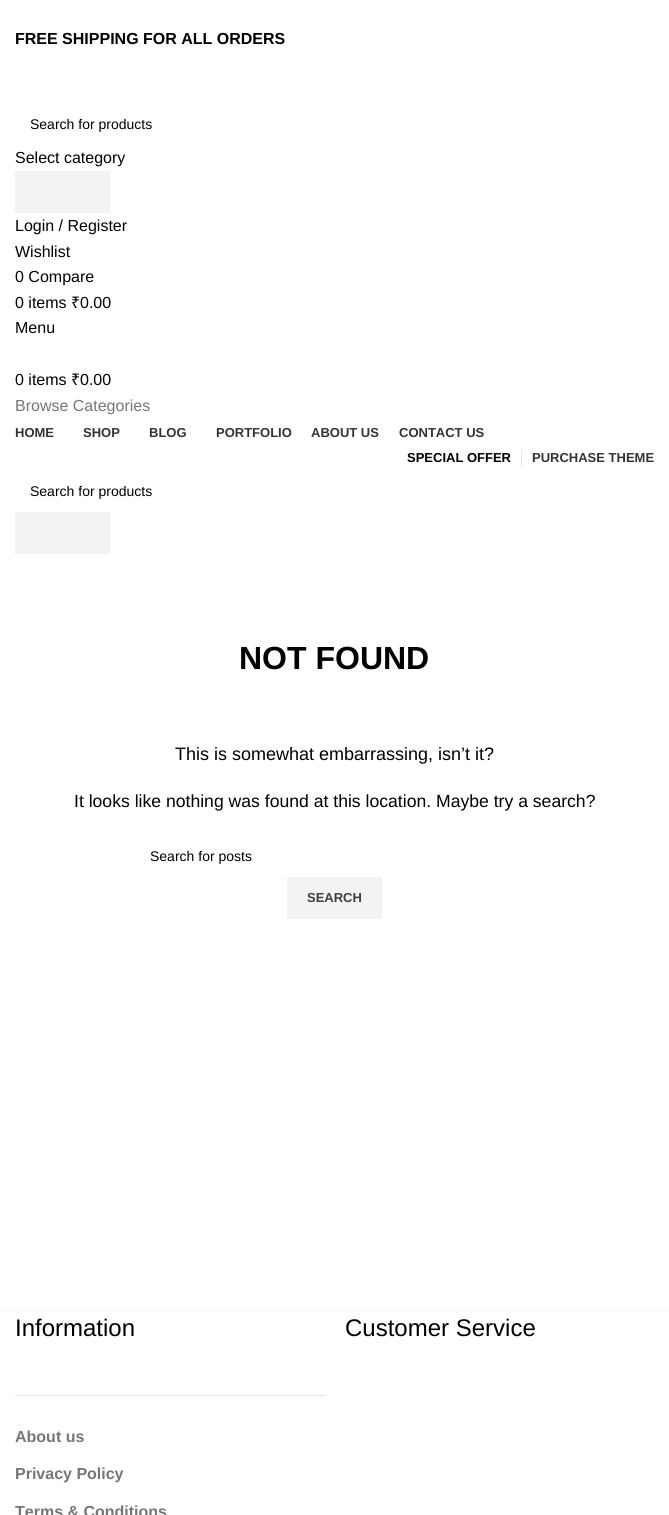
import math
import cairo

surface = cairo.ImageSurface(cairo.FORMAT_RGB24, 669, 1515)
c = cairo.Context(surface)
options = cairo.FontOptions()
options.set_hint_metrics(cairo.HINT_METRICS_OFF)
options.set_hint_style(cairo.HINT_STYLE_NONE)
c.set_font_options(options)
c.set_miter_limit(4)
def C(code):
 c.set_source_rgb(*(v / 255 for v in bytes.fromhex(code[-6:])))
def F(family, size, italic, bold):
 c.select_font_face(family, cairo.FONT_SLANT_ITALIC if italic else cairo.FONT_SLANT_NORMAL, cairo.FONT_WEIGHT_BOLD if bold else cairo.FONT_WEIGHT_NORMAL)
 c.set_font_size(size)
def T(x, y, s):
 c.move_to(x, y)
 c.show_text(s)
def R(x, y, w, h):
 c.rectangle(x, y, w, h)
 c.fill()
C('ffffff')
c.paint()
F('Liberation Sans',16,0,1)
C('000000')
T(15,44,'FREE SHIPPING FOR ALL ORDERS')
F('Liberation Sans',14,0,0)
T(30,129,'Search for products')
F('Liberation Sans',16,0,0)
T(15,163,'Select category')
C('f3f3f3')
R(15,171,95,42)
C('000000')
T(15,231,'Login / Register')
T(15,257,'Wishlist')
T(15,282,'0 Compare')
T(15,308,'0 items')
F('Noto Sans',16,0,0)
T(71,308,'₹')
F('Liberation Sans',16,0,0)
T(80,308,'0.00')
T(15,333,'Menu')
T(15,385,'0 items')
F('Noto Sans',16,0,0)
T(71,385,'₹')
F('Liberation Sans',16,0,0)
T(80,385,'0.00')
C('767676')
T(15,411,'Browse Categories')
F('Liberation Sans',13,0,1)
C('333333')
T(15,437,'HOME')
T(83,437,'SHOP')
T(149,437,'BLOG')
T(216,437,'PORTFOLIO')
T(311,437,'ABOUT US')
T(399,437,'CONTACT US')
C('000000')
T(407,462,'SPECIAL OFFER')
C('e4e4e4')
R(521,449,1,18)
C('333333')
T(532,462,'PURCHASE THEME')
F('Liberation Sans',14,0,0)
C('000000')
T(30,496,'Search for products')
C('f3f3f3')
R(15,512,95,42)
F('Liberation Sans',32,0,1)
C('000000')
T(239,669,'NOT FOUND')
F('Liberation Sans',18,0,0)
T(175,760,'This is somewhat embarrassing, isn’t it?')
F('Liberation Sans',17.6,0,0)
T(74,807,'It looks like nothing was found at this location. Maybe try a search?')
F('Liberation Sans',14,0,0)
T(150,861,'Search for posts')
C('f3f3f3')
R(287,877,95,42)
F('Liberation Sans',13,0,1)
C('3e3e3e')
T(307,902,'SEARCH')
C('f9f9f9')
R(0,1311,669,1)
C('e4e4e4')
R(15,1395,310,1)
F('Liberation Sans',24,0,0)
C('000000')
T(15,1336,'Information')
F('Liberation Sans',16,0,1)
C('767676')
T(15,1442,'About us')
T(15,1479,'Privacy Policy')
T(15,1517,'Terms & Conditions')
F('Liberation Sans',24,0,0)
C('000000')
T(345,1336,'Customer Service')
surface.write_to_png('o.png')
